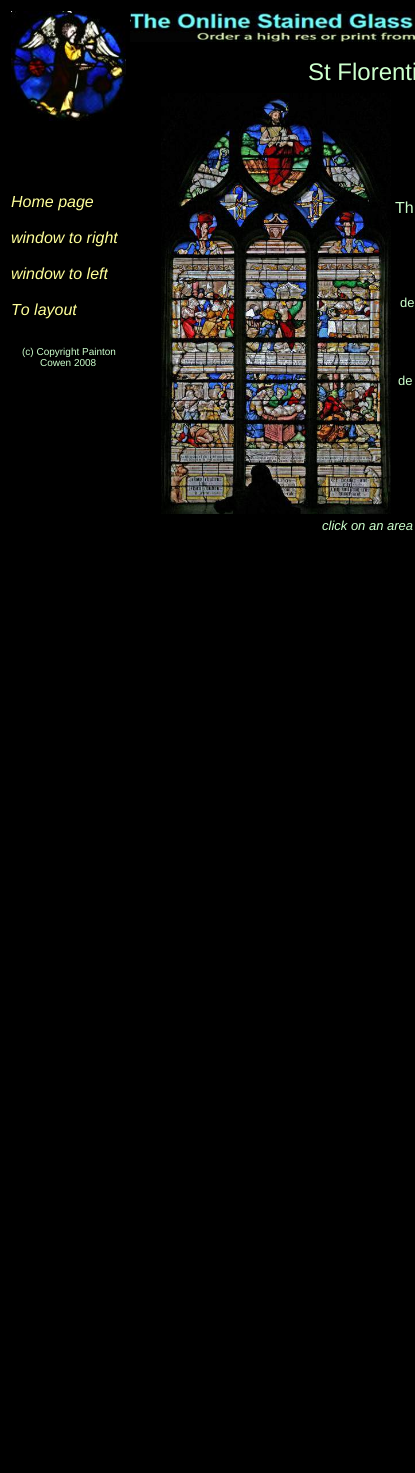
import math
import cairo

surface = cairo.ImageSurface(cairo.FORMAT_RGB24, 415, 1473)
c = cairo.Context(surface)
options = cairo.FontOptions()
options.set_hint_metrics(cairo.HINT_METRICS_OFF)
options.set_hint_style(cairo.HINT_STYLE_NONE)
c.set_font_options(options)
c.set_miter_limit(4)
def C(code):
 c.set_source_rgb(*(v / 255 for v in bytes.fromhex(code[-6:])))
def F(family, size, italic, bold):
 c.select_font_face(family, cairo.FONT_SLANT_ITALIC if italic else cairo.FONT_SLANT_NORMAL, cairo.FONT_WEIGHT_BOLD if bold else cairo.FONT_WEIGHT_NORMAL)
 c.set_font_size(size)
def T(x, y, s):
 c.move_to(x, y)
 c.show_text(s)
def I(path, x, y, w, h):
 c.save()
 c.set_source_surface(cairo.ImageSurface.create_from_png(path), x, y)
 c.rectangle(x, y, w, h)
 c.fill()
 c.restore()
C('000000')
c.paint()
I('1.png',130,11,285,31)
F('Liberation Sans',24,0,0)
C('ccffcc')
T(308,80,'St Florenti')
I('2.png',11,11,115,110)
F('Liberation Sans',16,1,0)
C('ffff99')
T(11,207,'Home page')
T(11,243,'window to right')
T(11,279,'window to left')
T(11,315,'To layout')
F('Liberation Sans',10,0,0)
C('ccffcc')
T(22,355,'(c) Copyright Painton')
T(40,366,'Cowen 2008')
I('3.png',161,93,230,421)
F('Liberation Sans',16,0,0)
T(395,213,'Th')
F('Liberation Sans',13,0,0)
T(400,307,'de')
T(398,385,'de')
F('Liberation Sans',13,1,0)
T(322,530,'click on an area')
surface.write_to_png('o.png')
